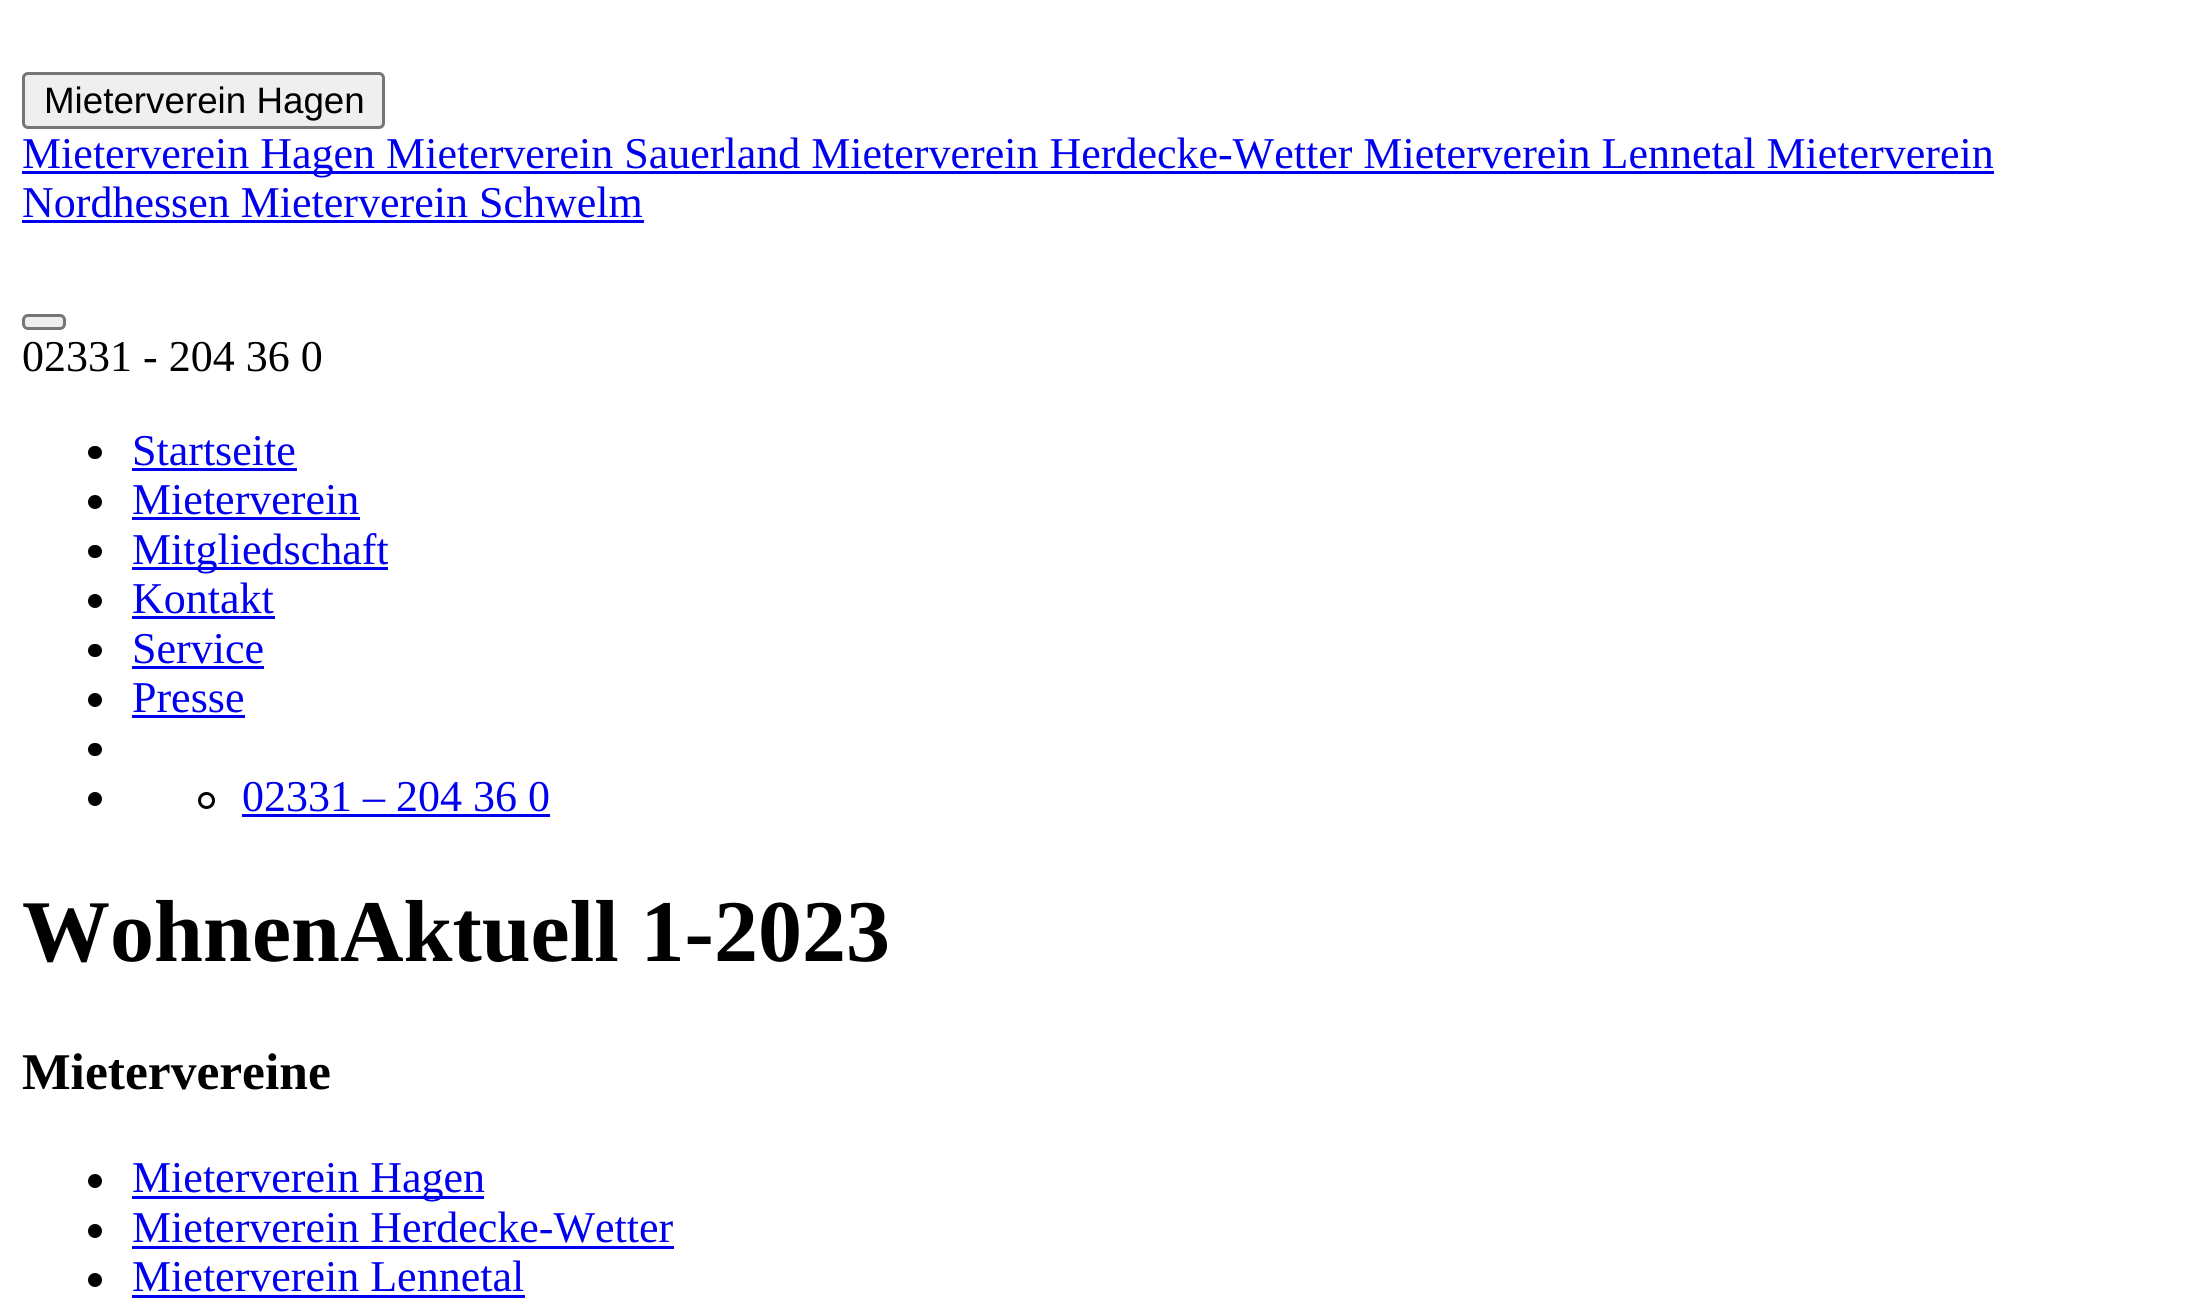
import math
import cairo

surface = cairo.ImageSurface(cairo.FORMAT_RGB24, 2195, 1299)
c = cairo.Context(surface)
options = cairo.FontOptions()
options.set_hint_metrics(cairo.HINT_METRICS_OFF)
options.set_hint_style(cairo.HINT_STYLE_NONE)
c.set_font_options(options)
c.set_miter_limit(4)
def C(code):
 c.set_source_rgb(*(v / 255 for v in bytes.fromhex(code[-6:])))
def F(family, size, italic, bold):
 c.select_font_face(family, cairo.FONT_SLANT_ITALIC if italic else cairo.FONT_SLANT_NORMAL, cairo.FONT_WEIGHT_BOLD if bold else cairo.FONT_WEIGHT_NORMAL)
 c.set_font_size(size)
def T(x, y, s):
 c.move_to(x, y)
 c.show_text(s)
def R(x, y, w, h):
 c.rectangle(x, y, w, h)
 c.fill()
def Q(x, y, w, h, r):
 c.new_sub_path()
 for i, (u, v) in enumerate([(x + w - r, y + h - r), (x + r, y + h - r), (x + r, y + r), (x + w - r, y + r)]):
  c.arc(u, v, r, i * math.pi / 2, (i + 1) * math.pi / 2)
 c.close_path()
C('ffffff')
c.paint()
C('efefef')
Q(23.5,73.5,360,54,4.5)
c.fill_preserve()
C('767676')
c.set_line_width(3)
c.stroke()
F('Liberation Sans',36.75,0,0)
C('000000')
T(44,113,'Mieterverein Hagen')
C('0000ee')
R(22,171,1972,3)
F('Liberation Serif',44,0,0)
T(22,168,'Mieterverein Hagen Mieterverein Sauerland Mieterverein Herdecke-Wetter Mieterverein Lennetal Mieterverein')
T(22,217,'Nordhessen Mieterverein Schwelm')
R(22,220,622,3)
C('efefef')
Q(23.5,315.5,41,13,4.5)
c.fill_preserve()
C('767676')
c.stroke()
C('000000')
T(22,371,'02331 - 204 36 0')
Q(88,446,14,13,6.5)
c.fill()
C('0000ee')
T(132,465,'Startseite')
R(132,468,165,3)
C('000000')
c.new_path()
c.arc(95,502,7,0,2 * math.pi)
c.fill()
C('0000ee')
T(132,514,'Mieterverein')
R(132,517,228,3)
C('000000')
Q(88,545,14,13,6.5)
c.fill()
C('0000ee')
R(132,567,256,3)
T(132,564,'Mitgliedschaft')
C('000000')
c.new_path()
c.arc(95,601,7,0,2 * math.pi)
c.fill()
C('0000ee')
T(132,613,'Kontakt')
R(132,616,143,3)
C('000000')
Q(88,644,14,13,6.5)
c.fill()
C('0000ee')
T(132,663,'Service')
R(132,666,132,3)
C('000000')
c.new_path()
c.arc(95,700,7,0,2 * math.pi)
c.fill()
C('0000ee')
T(132,712,'Presse')
R(132,715,113,3)
C('000000')
Q(88,743,14,13,6.5)
c.fill()
c.arc(95,799,7,0,2 * math.pi)
c.fill()
c.arc(206.5,800.5,7,0,2 * math.pi)
c.stroke()
C('0000ee')
T(242,811,'02331 – 204 36 0')
R(242,814,308,3)
F('Liberation Serif',88,0,1)
C('000000')
T(22,961,'WohnenAktuell 1-2023')
F('Liberation Serif',51.5,0,1)
T(22,1089,'Mietervereine')
c.new_path()
c.arc(95,1181,7,0,2 * math.pi)
c.fill()
C('0000ee')
R(132,1196,352,3)
F('Liberation Serif',44,0,0)
T(132,1192,'Mieterverein Hagen')
C('000000')
c.new_path()
c.arc(95,1231,7,0,2 * math.pi)
c.fill()
C('0000ee')
T(132,1242,'Mieterverein Herdecke-Wetter')
R(132,1246,542,3)
C('000000')
c.new_path()
c.arc(95,1280,7,0,2 * math.pi)
c.fill()
C('0000ee')
T(132,1291,'Mieterverein Lennetal')
R(132,1295,393,3)
surface.write_to_png('o.png')
